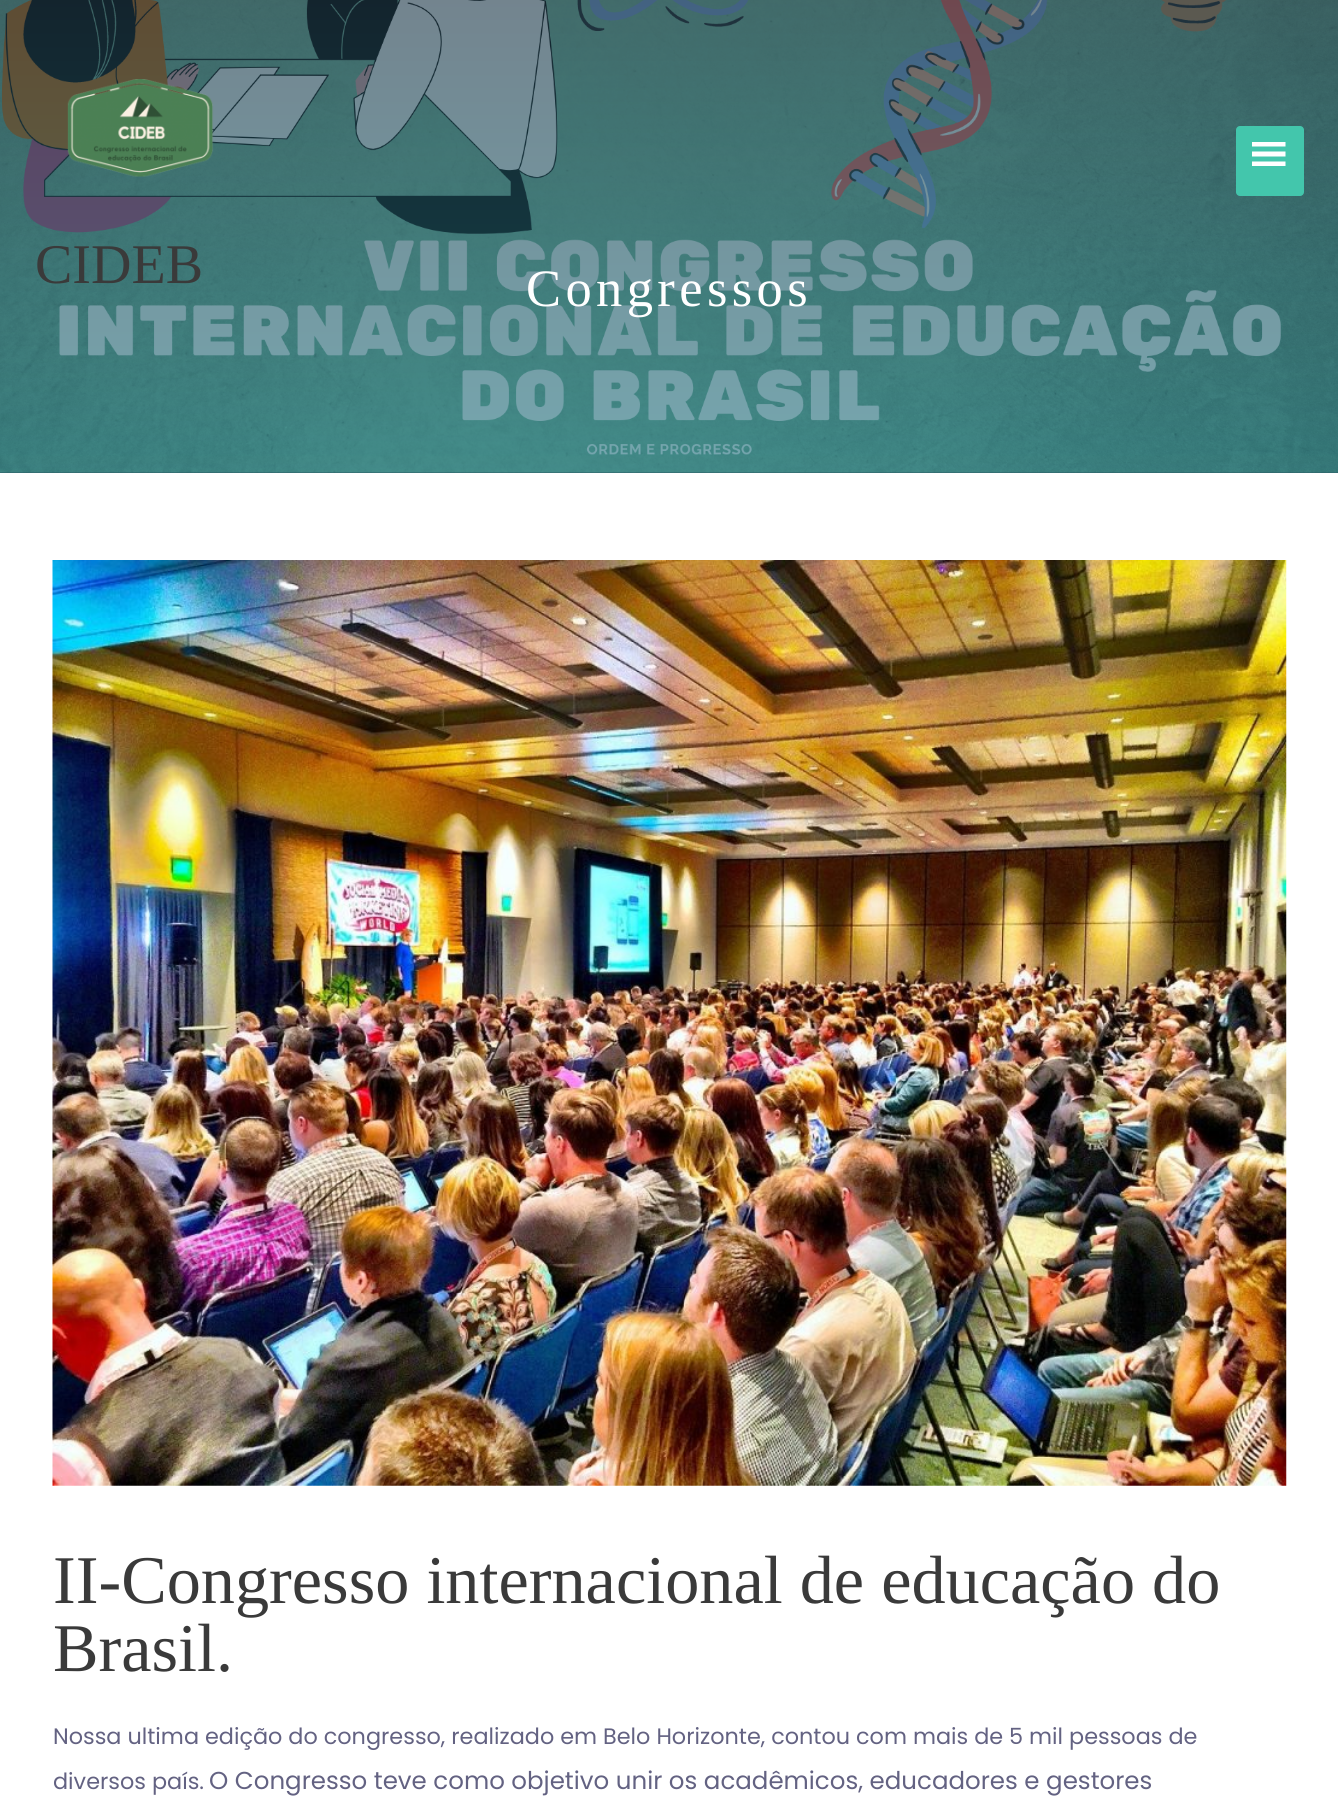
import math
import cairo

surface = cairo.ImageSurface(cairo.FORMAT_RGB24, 1338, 1796)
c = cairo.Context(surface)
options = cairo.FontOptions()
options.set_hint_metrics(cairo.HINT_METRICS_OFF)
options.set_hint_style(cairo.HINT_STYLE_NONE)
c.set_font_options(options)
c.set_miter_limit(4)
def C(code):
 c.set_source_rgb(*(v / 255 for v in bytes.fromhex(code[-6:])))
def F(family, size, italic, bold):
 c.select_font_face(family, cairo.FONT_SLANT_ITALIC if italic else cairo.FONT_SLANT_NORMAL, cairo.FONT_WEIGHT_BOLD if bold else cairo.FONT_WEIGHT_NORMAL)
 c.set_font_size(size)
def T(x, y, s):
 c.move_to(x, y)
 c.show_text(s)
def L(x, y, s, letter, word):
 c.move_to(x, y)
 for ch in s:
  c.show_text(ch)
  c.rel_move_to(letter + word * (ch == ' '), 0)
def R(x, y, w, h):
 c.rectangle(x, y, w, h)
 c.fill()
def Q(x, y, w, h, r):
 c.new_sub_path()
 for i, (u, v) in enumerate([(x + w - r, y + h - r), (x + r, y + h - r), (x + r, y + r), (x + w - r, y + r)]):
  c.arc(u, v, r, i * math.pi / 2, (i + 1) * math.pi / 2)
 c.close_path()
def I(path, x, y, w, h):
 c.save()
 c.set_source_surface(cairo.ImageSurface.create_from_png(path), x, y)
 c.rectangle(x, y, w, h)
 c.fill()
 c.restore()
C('ffffff')
c.paint()
C('494949')
R(0,472,1338,1)
I('2.png',0,0,1338,473)
gradient = cairo.LinearGradient(669,0,669,473)
gradient.add_color_stop_rgba(0,0.082,0.196,0.263,.6)
gradient.add_color_stop_rgba(1,0.102,0.424,0.478,.6)
c.set_source(gradient)
R(0,0,1338,473)
C('43c6ac')
Q(1236,126,68,70,4)
c.fill()
C('ffffff')
c.new_path()
c.move_to(1285.5,142)
c.line_to(1252,142)
c.line_to(1252,146.5)
c.line_to(1285.5,146.5)
c.close_path()
c.move_to(1252,151.5)
c.line_to(1285.5,151.5)
c.line_to(1285.5,156.5)
c.line_to(1252,156.5)
c.close_path()
c.move_to(1285.5,161.5)
c.line_to(1252,161.5)
c.line_to(1252,166)
c.line_to(1285.5,166)
c.close_path()
c.fill()
I('1.png',67,79,147,98)
F('Liberation Serif',56,0,0)
C('3a3a3a')
T(35,283,'CIDEB')
F('Liberation Serif',52.5,0,0)
C('ffffff')
L(526,306,'Congressos',4.4,0)
I('3.png',52,560,1235,926)
F('Liberation Serif',68.25,0,0)
C('3a3a3a')
T(53,1603,'II-Congresso internacional de educação do')
T(53,1671,'Brasil.')
F('Poppins',22.35,0,0)
C('636282')
T(53,1744,'Nossa ultima edição do congresso, realizado em Belo Horizonte, contou com mais de 5 mil pessoas de')
T(53,1789,'diversos país.')
F('Poppins',24.5,0,0)
T(209,1789,'O Congresso teve como objetivo unir os acadêmicos, educadores e gestores')
surface.write_to_png('o.png')
